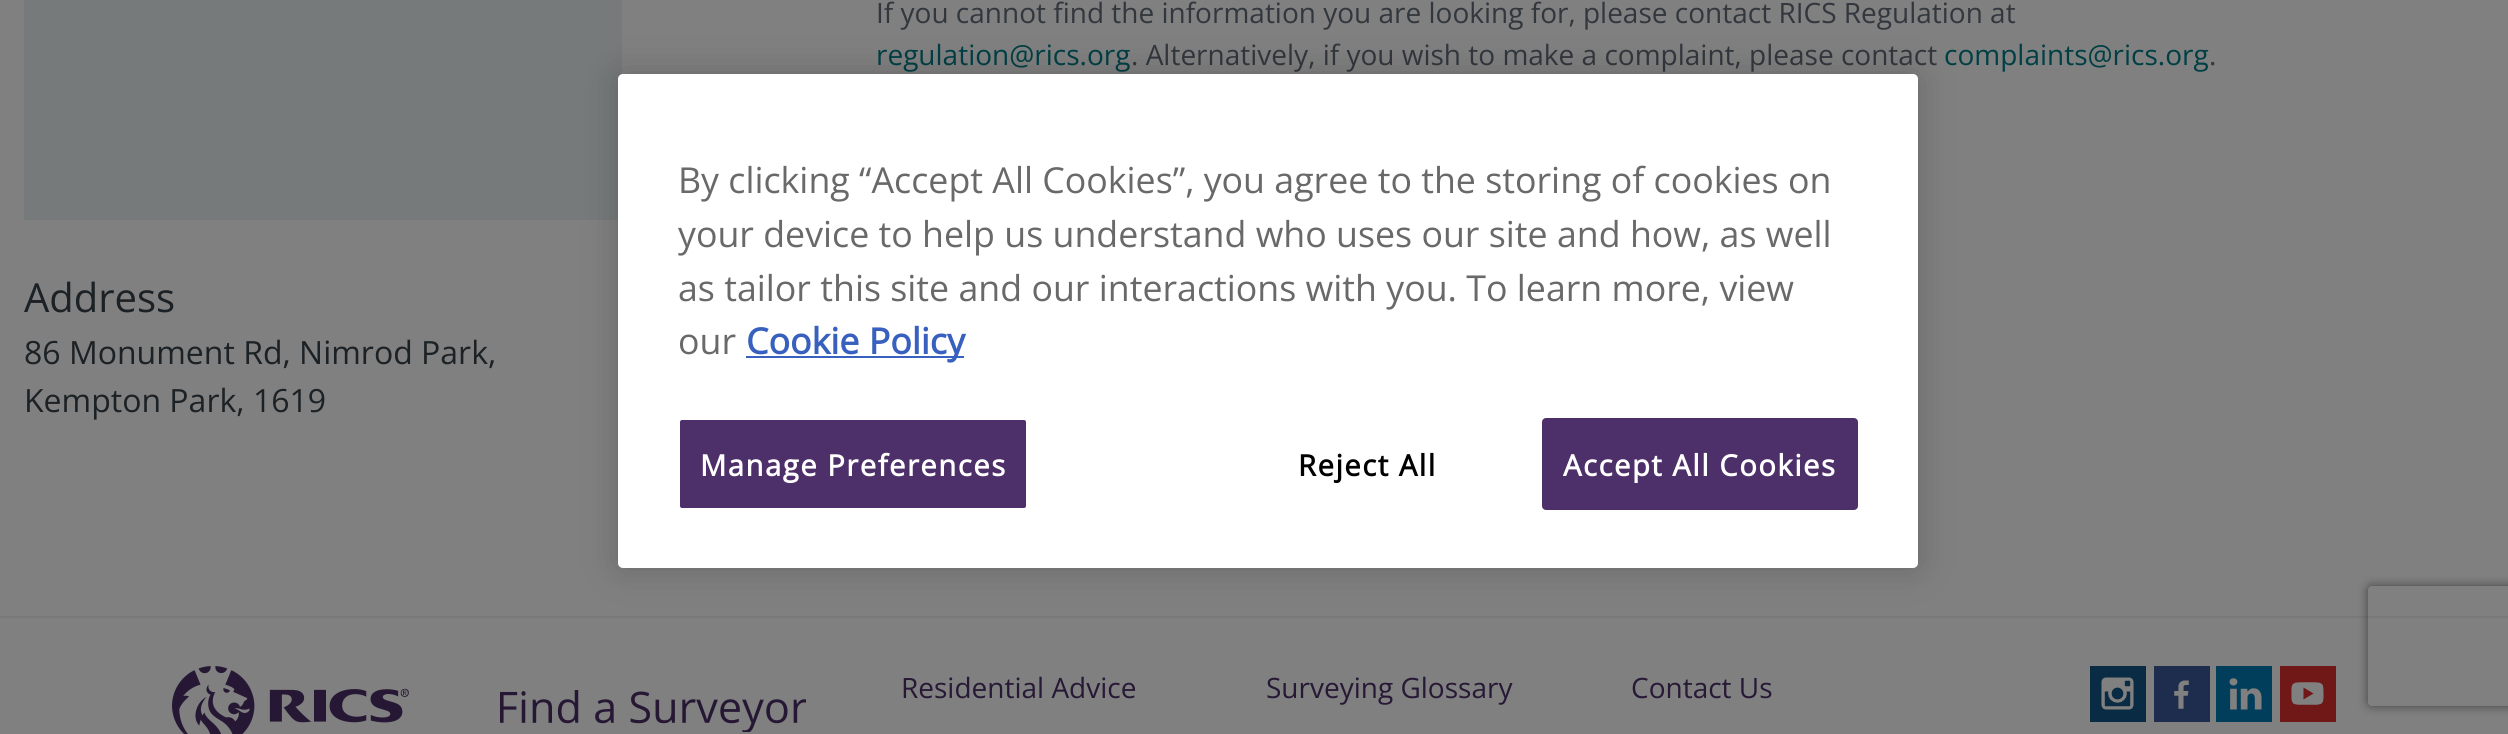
import math
import cairo

surface = cairo.ImageSurface(cairo.FORMAT_RGB24, 2508, 734)
c = cairo.Context(surface)
options = cairo.FontOptions()
options.set_hint_metrics(cairo.HINT_METRICS_OFF)
options.set_hint_style(cairo.HINT_STYLE_NONE)
c.set_font_options(options)
c.set_miter_limit(4)
def C(code):
 c.set_source_rgb(*(v / 255 for v in bytes.fromhex(code[-6:])))
def F(family, size, italic, bold):
 c.select_font_face(family, cairo.FONT_SLANT_ITALIC if italic else cairo.FONT_SLANT_NORMAL, cairo.FONT_WEIGHT_BOLD if bold else cairo.FONT_WEIGHT_NORMAL)
 c.set_font_size(size)
def T(x, y, s):
 c.move_to(x, y)
 c.show_text(s)
def L(x, y, s, letter, word):
 c.move_to(x, y)
 for ch in s:
  c.show_text(ch)
  c.rel_move_to(letter + word * (ch == ' '), 0)
def R(x, y, w, h):
 c.rectangle(x, y, w, h)
 c.fill()
def Q(x, y, w, h, r):
 c.new_sub_path()
 for i, (u, v) in enumerate([(x + w - r, y + h - r), (x + r, y + h - r), (x + r, y + r), (x + w - r, y + r)]):
  c.arc(u, v, r, i * math.pi / 2, (i + 1) * math.pi / 2)
 c.close_path()
def S(x, y, w, h, r, blur, alpha):
 c.push_group_with_content(cairo.CONTENT_ALPHA)
 c.set_operator(cairo.OPERATOR_SOURCE)
 for i in range(15, -16, -2):
  e = blur * i / 6
  if min(w, h) + 2 * e > 0:
   c.set_source_rgba(0, 0, 0, alpha * math.erfc((i - 1) / 8.5) / 2)
   Q(x - e, y - e, w + 2 * e, h + 2 * e, max(0, min(r + e + blur * .6, min(w, h) / 2 + e)))
   c.fill()
 c.mask(c.pop_group())
def I(path, x, y, w, h):
 c.save()
 c.set_source_surface(cairo.ImageSurface.create_from_png(path), x, y)
 c.rectangle(x, y, w, h)
 c.fill()
 c.restore()
C('808080')
c.paint()
F('Open Sans',28,0,0)
C('32373d')
T(876,23,'If you cannot find the information you are looking for, please contact RICS Regulation at')
C('003f44')
T(876,65,'regulation@rics.org')
C('32373d')
T(1131,65,'. Alternatively, if you wish to make a complaint, please contact')
C('003f44')
T(1944,65,'complaints@rics.org')
C('32373d')
T(2209,65,'.')
C('767a7b')
R(24,0,598,220)
F('Open Sans',40,0,0)
C('1b2125')
T(24,312,'Address')
F('Open Sans',32,0,0)
T(24,364,'86 Monument Rd, Nimrod Park,')
T(24,412,'Kempton Park, 1619')
C('78797a')
R(0,616,2508,2)
I('1.png',172,666,237,68)
I('2.png',500,690,306,42)
F('Open Sans',28,0,0)
C('271835')
T(901,698,'Residential Advice')
T(1266,698,'Surveying Glossary')
T(1631,698,'Contact Us')
C('092b44')
R(2090,666,56,56)
I('3.png',2101,677,33,33)
C('1e2d4d')
R(2154,666,56,56)
I('4.png',2174,680,15,29)
C('003e5b')
R(2216,666,56,56)
I('5.png',2229,678,33,32)
C('6f1817')
R(2280,666,56,56)
I('6.png',2291,682,33,23)
C('000000')
S(618,74,1300,494,5,18,.2)
C('ffffff')
Q(618,74,1300,494,5)
c.fill()
F('Open Sans',35.75,0,0)
C('696969')
T(678,193,'By clicking “Accept All Cookies”, you agree to the storing of cookies on')
T(678,247,'your device to help us understand who uses our site and how, as well')
T(678,301,'as tailor this site and our interactions with you. To learn more, view')
T(678,354,'our')
C('3860be')
R(746,356,218,2)
F('Open Sans',35.75,0,1)
T(746,354,'Cookie Policy')
C('4d3069')
Q(679,419,348,90,3)
c.fill_preserve()
C('ffffff')
c.stroke()
F('Open Sans',29.25,0,1)
L(700,476,'Manage Preferences',1.5,0)
C('000000')
L(1298,476,'Reject All',1.5,0)
C('4d3069')
Q(1543,419,314,90,3)
c.fill_preserve()
c.stroke()
C('ffffff')
L(1563,476,'Accept All Cookies',1.5,0)
c.save()
c.set_fill_rule(cairo.FILL_RULE_EVEN_ODD)
c.new_path()
c.move_to(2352,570)
c.line_to(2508,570)
c.line_to(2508,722)
c.line_to(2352,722)
c.close_path()
c.move_to(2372,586)
c.line_to(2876,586)
c.curve_to(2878,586,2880,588,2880,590)
c.line_to(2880,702)
c.curve_to(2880,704,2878,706,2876,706)
c.line_to(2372,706)
c.curve_to(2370,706,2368,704,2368,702)
c.line_to(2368,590)
c.curve_to(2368,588,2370,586,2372,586)
c.close_path()
c.clip()
C('404040')
S(2368,586,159,120,4,5,1)
c.restore()
surface.write_to_png('o.png')
